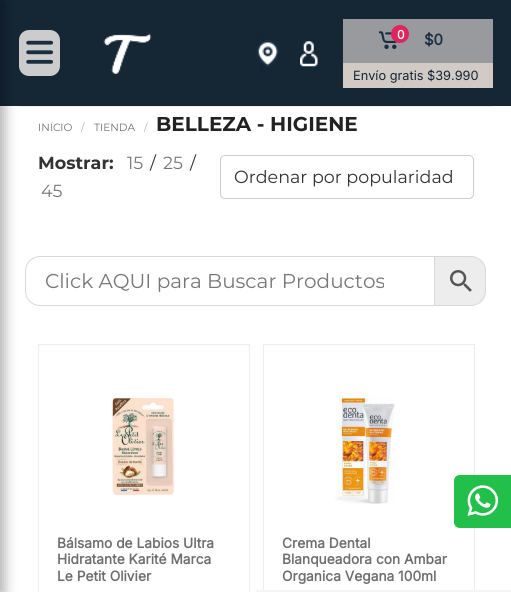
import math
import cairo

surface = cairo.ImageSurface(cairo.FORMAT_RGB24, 511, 592)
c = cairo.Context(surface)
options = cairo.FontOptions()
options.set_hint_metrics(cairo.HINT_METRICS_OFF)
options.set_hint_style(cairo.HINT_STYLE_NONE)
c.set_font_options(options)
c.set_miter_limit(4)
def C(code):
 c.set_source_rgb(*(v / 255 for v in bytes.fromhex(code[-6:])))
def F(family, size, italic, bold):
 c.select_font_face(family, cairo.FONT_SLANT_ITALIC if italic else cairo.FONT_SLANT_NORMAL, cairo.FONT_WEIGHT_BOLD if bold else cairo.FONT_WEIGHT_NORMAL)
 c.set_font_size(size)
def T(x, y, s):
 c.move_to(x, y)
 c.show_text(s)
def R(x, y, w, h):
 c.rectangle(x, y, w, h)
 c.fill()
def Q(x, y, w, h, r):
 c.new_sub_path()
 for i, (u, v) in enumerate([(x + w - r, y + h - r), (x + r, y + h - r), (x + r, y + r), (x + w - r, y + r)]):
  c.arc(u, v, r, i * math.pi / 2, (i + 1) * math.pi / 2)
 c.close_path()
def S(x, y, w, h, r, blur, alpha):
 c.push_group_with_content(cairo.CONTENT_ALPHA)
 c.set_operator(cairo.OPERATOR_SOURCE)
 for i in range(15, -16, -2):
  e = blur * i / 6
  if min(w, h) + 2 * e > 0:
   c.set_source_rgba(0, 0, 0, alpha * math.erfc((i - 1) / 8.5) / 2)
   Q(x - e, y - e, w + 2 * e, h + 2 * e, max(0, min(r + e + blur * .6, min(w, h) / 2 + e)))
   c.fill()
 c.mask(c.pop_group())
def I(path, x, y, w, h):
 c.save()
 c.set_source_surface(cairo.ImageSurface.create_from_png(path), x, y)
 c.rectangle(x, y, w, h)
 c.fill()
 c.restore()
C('ffffff')
c.paint()
C('152635')
R(0,0,511,106)
C('cccccc')
Q(19,30,41,46,10)
c.fill()
C('ededed')
R(19,106,474,1)
C('000000')
S(-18,0,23,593,0,6,.3)
I('1.png',26,40,27,24)
I('2.png',103,33,49,41)
C('132230')
R(261,35,1,38)
I('3.png',256,40,24,28)
I('4.png',300,41,18,26)
C('989a9e')
R(343,19,150,44)
I('5.png',379,31,18,18)
C('e0245e')
c.arc(400,34,9,0,2 * math.pi)
c.fill()
F('Inter',12,0,1)
C('ffffff')
T(397,39,'0')
F('Inter',15,0,1)
C('192e41')
T(424,45,'$0')
C('d1cac5')
R(343,63,150,25)
F('Inter',12.75,0,0)
C('152635')
T(353,80,'Envío gratis $39.990')
F('Montserrat',10.5,0,0)
C('6e6e6e')
T(38,131,'INICIO')
C('b2b2b2')
T(81,131,'/')
C('6e6e6e')
T(94,131,'TIENDA')
C('b2b2b2')
T(144,131,'/')
F('Montserrat',20,0,1)
C('222222')
T(156,131,'BELLEZA - HIGIENE')
F('Montserrat',17.5,0,1)
C('333333')
T(38,169,'Mostrar:')
F('Montserrat',17.5,0,0)
C('777777')
T(127,169,'15')
C('333333')
T(150,169,'/')
C('777777')
T(163,169,'25')
C('333333')
T(190,169,'/')
C('777777')
T(41,197,'45')
Q(220.5,155.5,253,43,4.5)
C('cccccc')
c.set_line_width(1)
c.stroke()
C('333333')
T(234,183,'Ordenar por popularidad')
C('ededed')
c.new_path()
c.move_to(434.5,256.5)
c.line_to(471,256.5)
c.curve_to(479,256.5,485.5,263,485.5,271)
c.line_to(485.5,291)
c.curve_to(485.5,299,479,305.5,471,305.5)
c.line_to(434.5,305.5)
c.close_path()
c.fill_preserve()
C('d8d8d8')
c.stroke()
c.new_path()
c.move_to(40,256.5)
c.line_to(434.5,256.5)
c.line_to(434.5,305.5)
c.line_to(40,305.5)
c.curve_to(32,305.5,25.5,299,25.5,291)
c.line_to(25.5,271)
c.curve_to(25.5,263,32,256.5,40,256.5)
c.close_path()
c.stroke()
c.save()
c.rectangle(45,270,339,24)
c.clip()
F('Montserrat',20,0,0)
C('777777')
T(45,288,'Click AQUI para Buscar Productos')
c.restore()
I('6.png',450,270,22,22)
c.rectangle(38.5,344.5,211,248)
C('eeeeee')
c.stroke()
I('7.png',111,395,64,100)
F('Inter',13.75,0,1)
C('6e6e6e')
T(57,548,'Bálsamo de Labios Ultra')
T(57,564,'Hidratante Karité Marca')
T(57,581,'Le Petit Olivier')
c.rectangle(263.5,344.5,211,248)
C('eeeeee')
c.stroke()
I('8.png',335,395,60,109)
C('6e6e6e')
T(282,548,'Crema Dental')
T(282,564,'Blanqueadora con Ambar')
T(282,581,'Organica Vegana 100ml')
C('22bf4a')
c.new_path()
c.move_to(460,475)
c.line_to(511,475)
c.line_to(511,528)
c.line_to(460,528)
c.curve_to(456.5,528,454,525.5,454,522)
c.line_to(454,481)
c.curve_to(454,477.5,456.5,475,460,475)
c.close_path()
c.fill()
I('9.png',467,485,32,31)
C('f5f5f5')
R(256,590,255,2)
surface.write_to_png('o.png')
